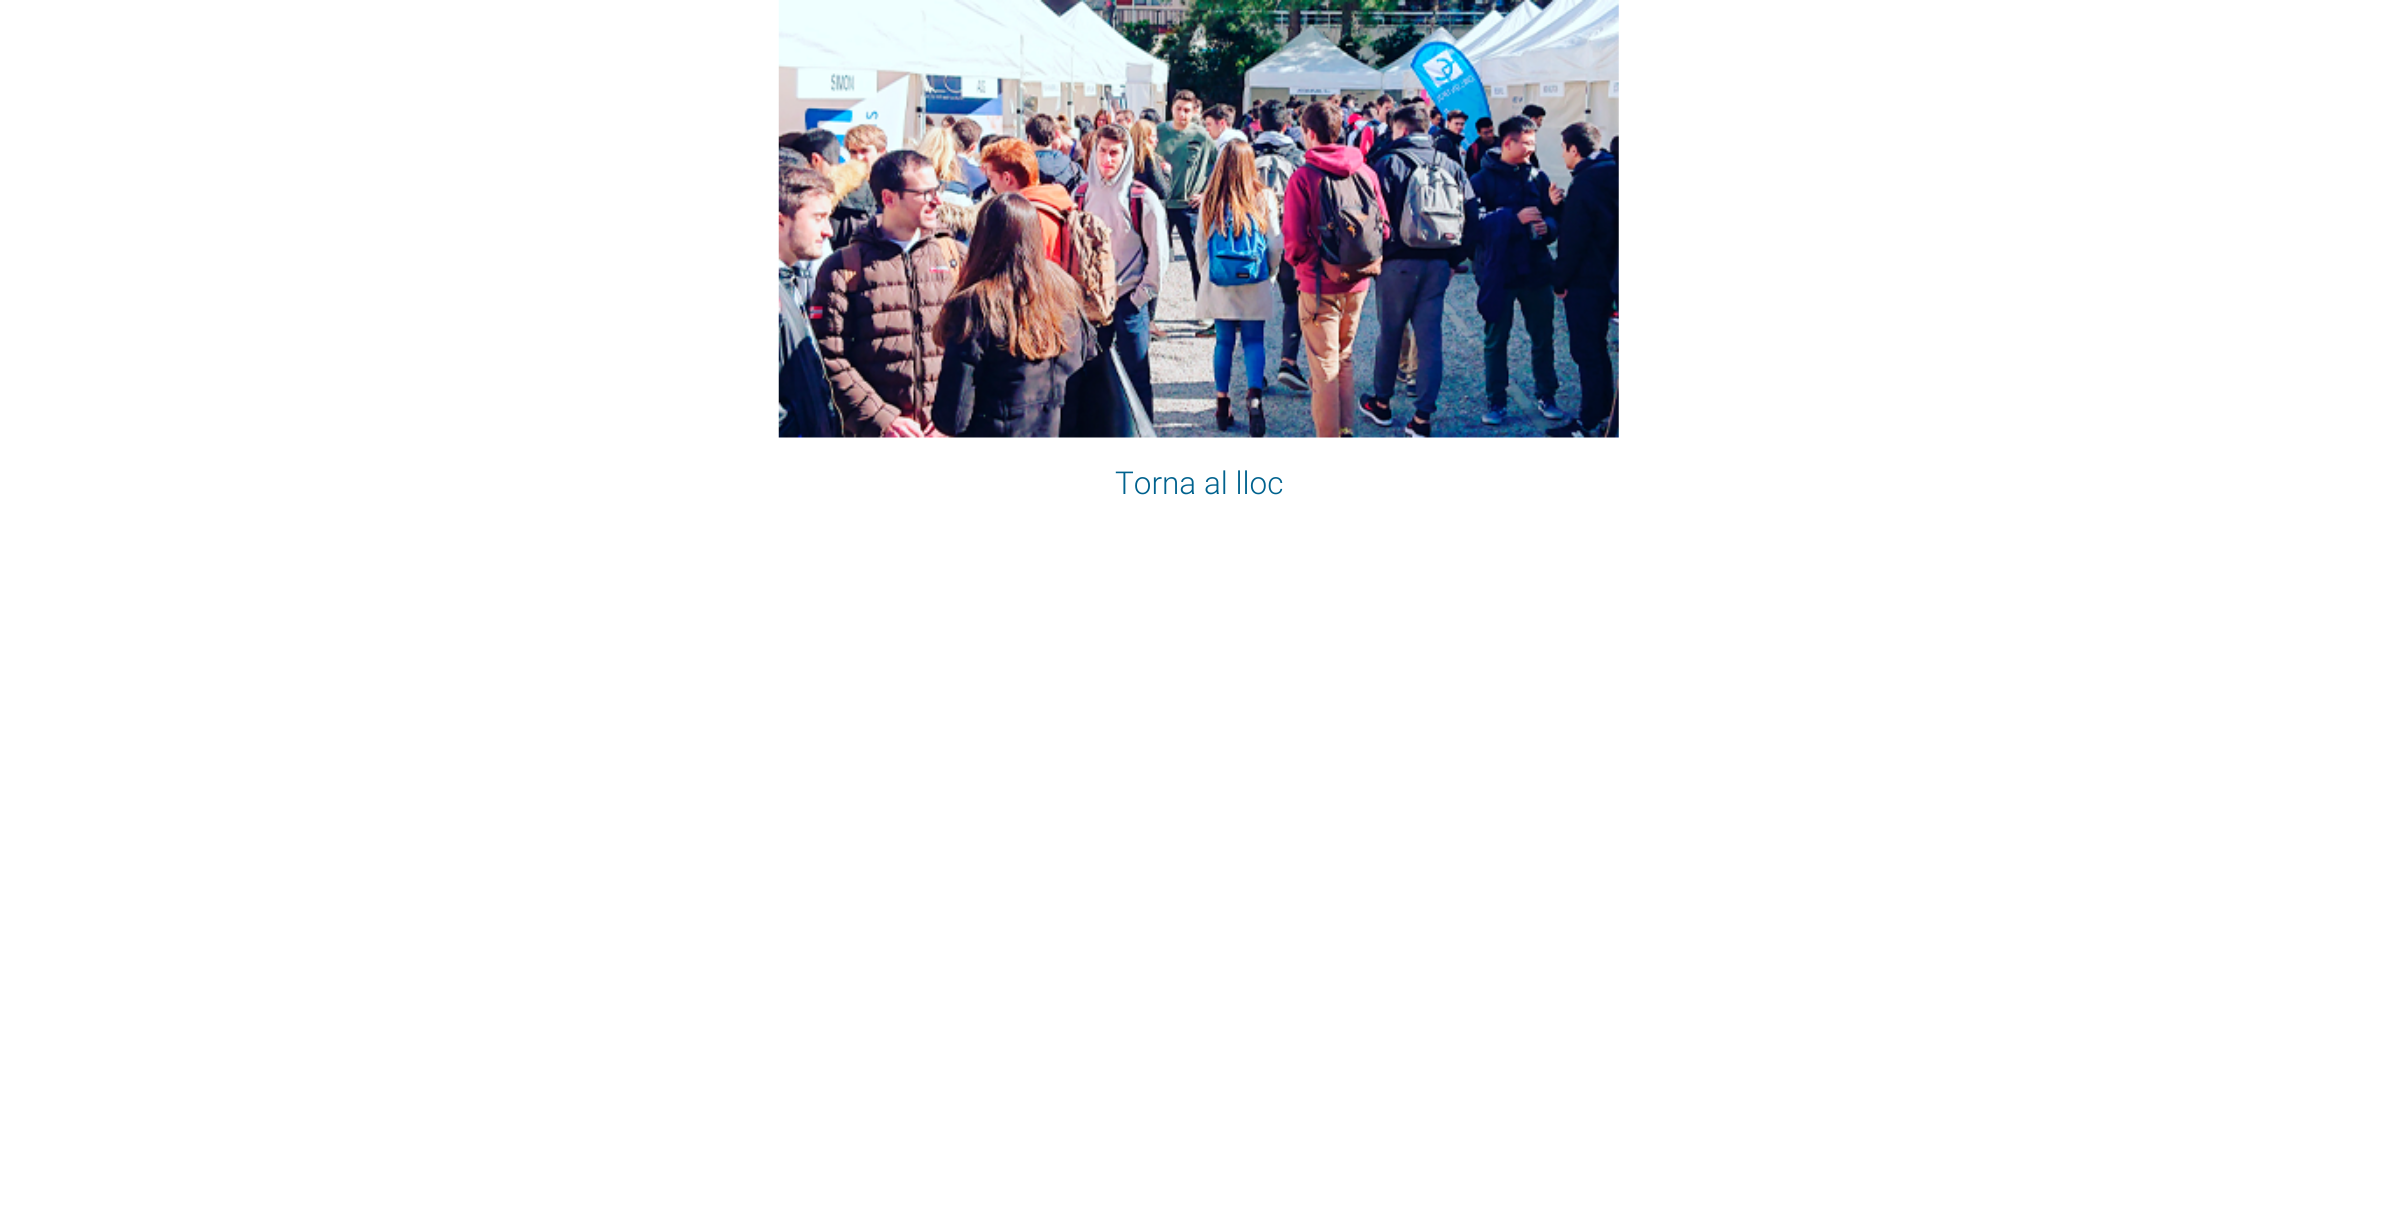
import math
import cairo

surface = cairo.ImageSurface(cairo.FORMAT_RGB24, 2396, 1221)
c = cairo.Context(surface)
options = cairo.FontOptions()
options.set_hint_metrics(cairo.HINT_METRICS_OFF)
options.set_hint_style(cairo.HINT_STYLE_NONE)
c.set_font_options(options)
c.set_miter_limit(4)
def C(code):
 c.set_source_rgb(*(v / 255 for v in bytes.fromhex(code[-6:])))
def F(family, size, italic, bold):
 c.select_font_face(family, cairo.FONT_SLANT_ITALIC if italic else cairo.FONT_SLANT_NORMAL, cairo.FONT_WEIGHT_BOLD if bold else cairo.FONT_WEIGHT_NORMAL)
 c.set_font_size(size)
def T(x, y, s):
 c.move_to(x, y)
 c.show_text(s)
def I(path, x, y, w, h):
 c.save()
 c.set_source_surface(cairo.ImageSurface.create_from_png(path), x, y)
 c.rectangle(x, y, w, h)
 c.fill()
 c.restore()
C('ffffff')
c.paint()
I('1.png',778,0,841,438)
F('Roboto Light',31.5,0,0)
C('00628e')
T(1115,494,'Torna al lloc')
surface.write_to_png('o.png')
